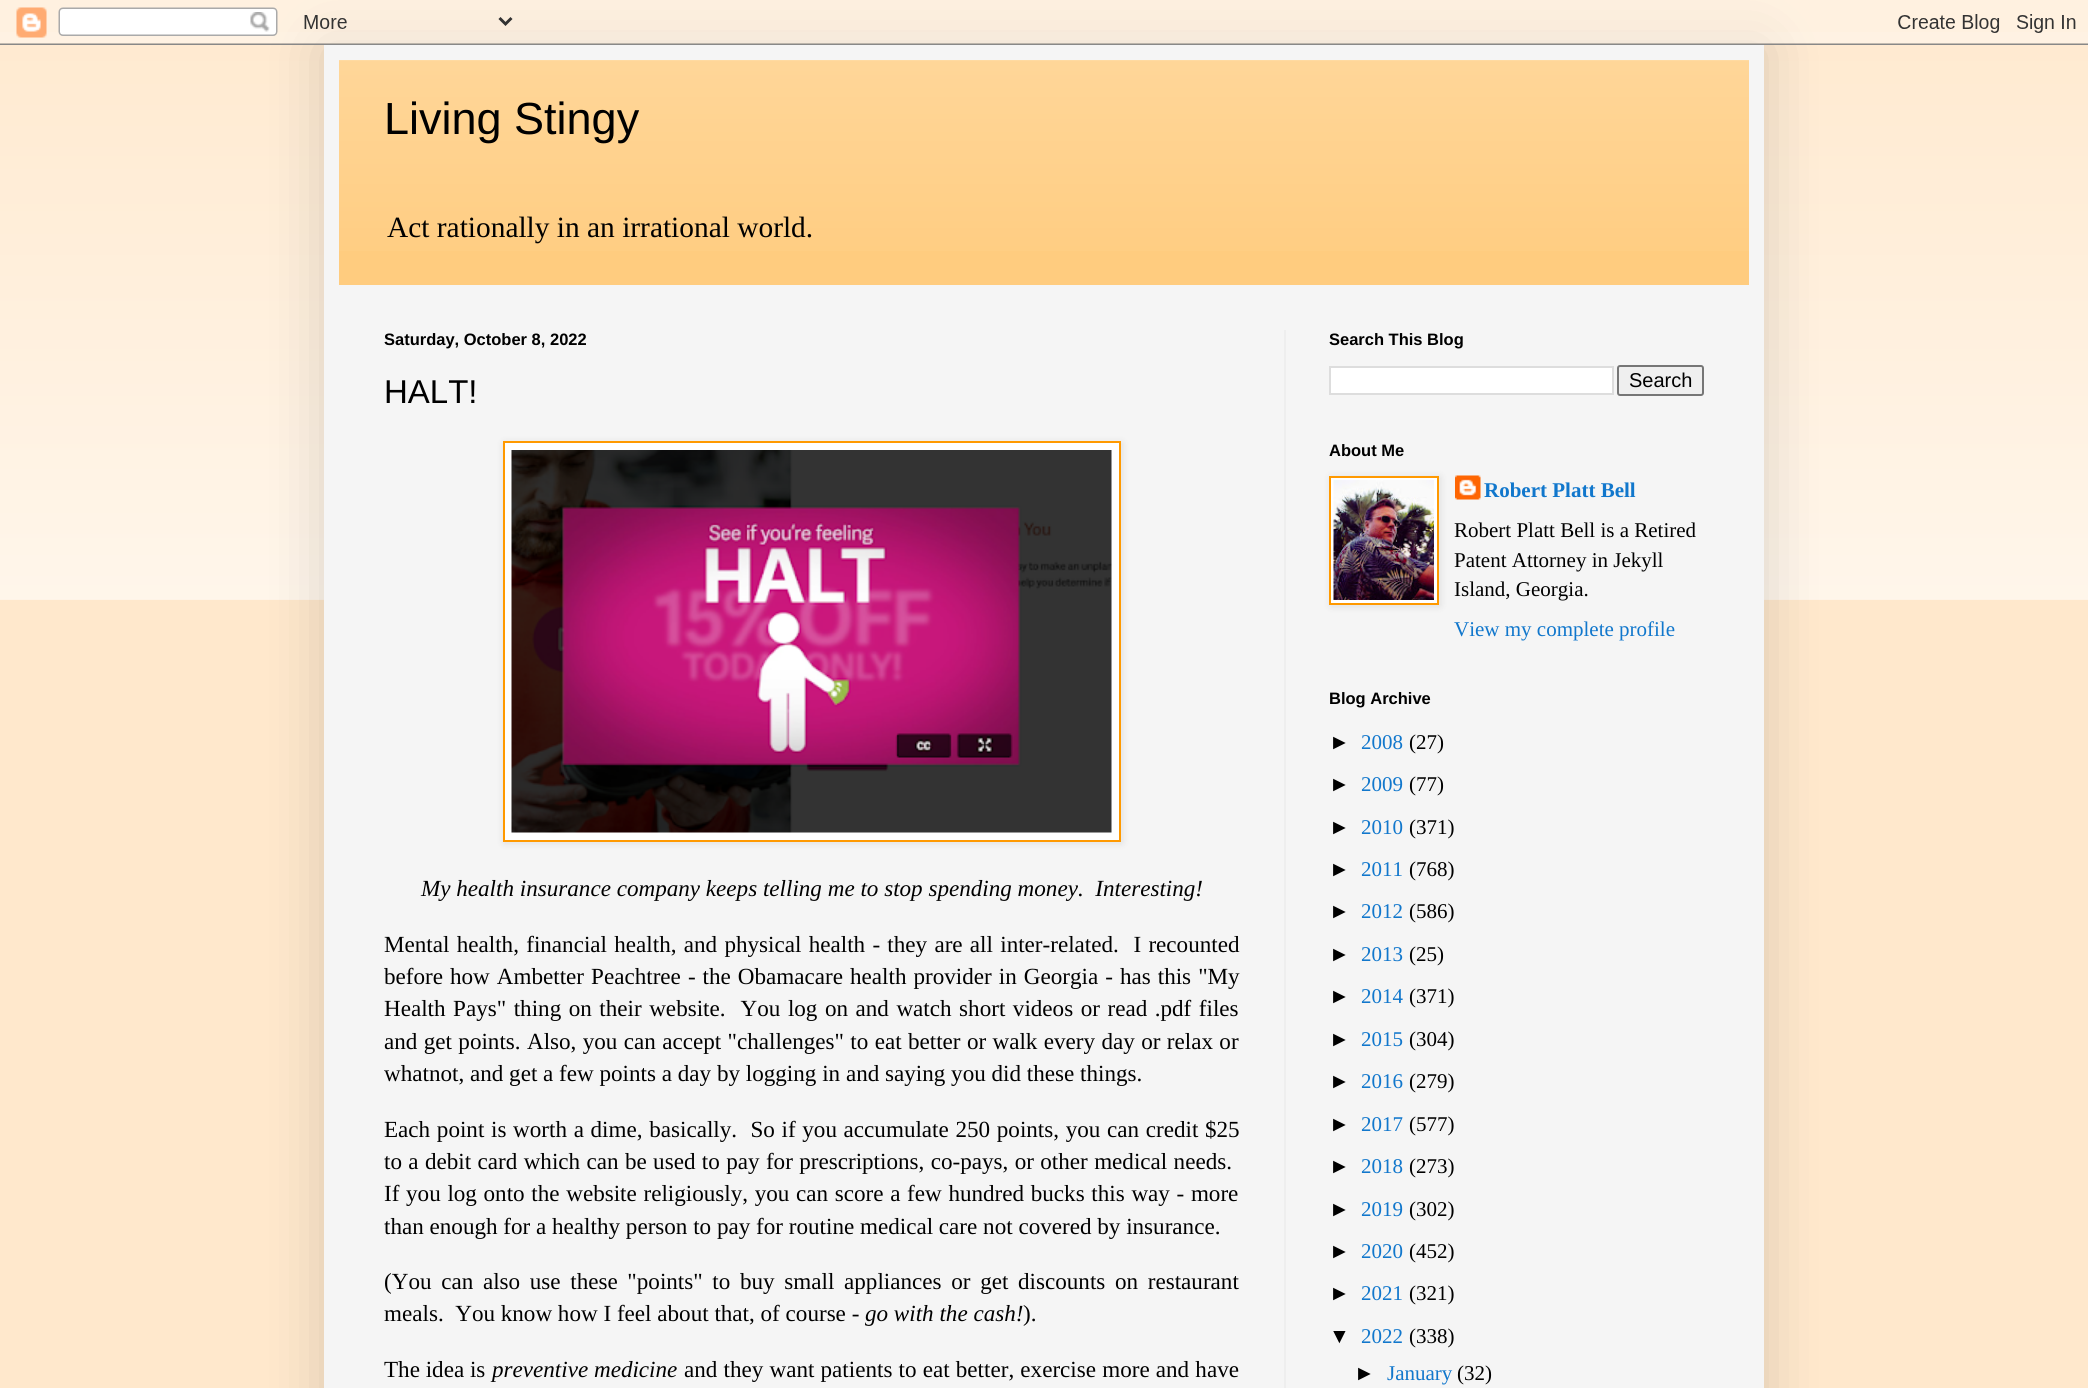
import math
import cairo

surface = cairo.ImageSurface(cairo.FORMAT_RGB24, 2088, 1388)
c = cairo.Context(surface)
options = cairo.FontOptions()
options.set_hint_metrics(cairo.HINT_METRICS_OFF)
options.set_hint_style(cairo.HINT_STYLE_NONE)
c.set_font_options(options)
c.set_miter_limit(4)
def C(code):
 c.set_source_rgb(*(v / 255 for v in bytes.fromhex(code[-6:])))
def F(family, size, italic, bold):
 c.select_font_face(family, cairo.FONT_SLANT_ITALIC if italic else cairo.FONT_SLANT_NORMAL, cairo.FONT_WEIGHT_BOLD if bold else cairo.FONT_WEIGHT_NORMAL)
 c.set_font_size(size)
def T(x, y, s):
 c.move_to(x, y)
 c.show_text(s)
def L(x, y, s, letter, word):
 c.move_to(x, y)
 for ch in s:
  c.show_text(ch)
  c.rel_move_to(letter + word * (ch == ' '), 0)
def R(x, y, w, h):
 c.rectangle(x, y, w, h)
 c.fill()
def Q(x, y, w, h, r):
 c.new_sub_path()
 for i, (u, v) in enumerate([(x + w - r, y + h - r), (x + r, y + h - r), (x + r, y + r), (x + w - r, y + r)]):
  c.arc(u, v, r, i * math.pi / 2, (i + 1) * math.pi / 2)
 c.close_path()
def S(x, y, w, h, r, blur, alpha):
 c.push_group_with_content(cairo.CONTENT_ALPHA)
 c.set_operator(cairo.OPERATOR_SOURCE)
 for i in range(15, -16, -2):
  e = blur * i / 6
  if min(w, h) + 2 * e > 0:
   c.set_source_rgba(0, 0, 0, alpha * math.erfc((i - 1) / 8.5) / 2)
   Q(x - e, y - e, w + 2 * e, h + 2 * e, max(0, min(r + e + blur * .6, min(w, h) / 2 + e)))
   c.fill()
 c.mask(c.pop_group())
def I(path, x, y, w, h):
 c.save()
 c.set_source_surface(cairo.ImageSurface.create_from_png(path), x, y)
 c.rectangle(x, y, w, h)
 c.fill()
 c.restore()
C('ffe8cc')
c.paint()
I('2.png',0,32,2088,568)
C('000000')
S(324,45,1440,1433,0,30,.15)
I('1.png',0,0,2088,45)
C('f5f5f5')
R(324,45,1440,1343)
C('ffcc7f')
R(339,60,1410,225)
I('3.png',339,60,1410,191)
F('Liberation Sans',45,0,0)
C('000000')
T(384,134,'Living Stingy')
F('Liberation Serif',29.4,0,0)
T(387,237,'Act rationally in an irrational world.')
C('eeeeee')
R(1284,330,2,1058)
F('Liberation Sans',16.5,0,1)
C('000000')
T(384,345,'Saturday, October 8, 2022')
F('Liberation Sans',33,0,0)
T(384,403,'HALT!')
C('000000')
S(504,443,618,400,0,4,.1)
C('ffffff')
c.rectangle(504,442,616,399)
c.fill_preserve()
C('ff9900')
c.stroke()
I('4.png',511,450,601,383)
F('Liberation Serif',23.1,1,0)
C('000000')
T(421,896,'My health insurance company keeps telling me to stop spending money.  Interesting!')
F('Liberation Serif',23.1,0,0)
L(384,952,'Mental health, financial health, and physical health - they are all inter-related.  I recounted',0,1.5)
L(384,984,'before how Ambetter Peachtree - the Obamacare health provider in Georgia - has this "My',0,1.25)
L(384,1016,'Health Pays" thing on their website.  You log on and watch short videos or read .pdf files',0,1.75)
L(384,1049,'and get points. Also, you can accept "challenges" to eat better or walk every day or relax or',0,.6)
T(384,1081,'whatnot, and get a few points a day by logging in and saying you did these things.')
L(384,1137,'Each point is worth a dime, basically.  So if you accumulate 250 points, you can credit $25',0,.9)
L(384,1169,'to a debit card which can be used to pay for prescriptions, co-pays, or other medical needs.',0,.6)
L(384,1201,'If you log onto the website religiously, you can score a few hundred bucks this way - more',0,.9)
T(384,1234,'than enough for a healthy person to pay for routine medical care not covered by insurance.')
L(384,1289,'(You can also use these "points" to buy small appliances or get discounts on restaurant',0,3.9)
T(384,1321,'meals.  You know how I feel about that, of course -')
F('Liberation Serif',23.1,1,0)
T(865,1321,'go with the cash!')
F('Liberation Serif',23.1,0,0)
T(1023,1321,').')
T(384,1377,'The idea is')
F('Liberation Serif',23.1,1,0)
T(492,1377,'preventive medicine')
F('Liberation Serif',23.1,0,0)
L(684,1377,'and they want patients to eat better, exercise more and have',0,.4)
F('Liberation Sans',16.5,0,1)
T(1329,345,'Search This Blog')
C('ffffff')
c.rectangle(1330,367,283,27)
c.fill_preserve()
C('dddddd')
c.stroke()
C('efefef')
Q(1618,366,85,29,2)
c.fill_preserve()
C('767676')
c.stroke()
F('Liberation Sans',20,0,0)
C('000000')
T(1629,387,'Search')
F('Liberation Sans',16.5,0,1)
T(1329,456,'About Me')
C('000000')
S(1331,477,109,129,0,4,.1)
C('ffffff')
c.rectangle(1330,477,108,127)
c.fill_preserve()
C('ff9900')
c.stroke()
I('5.png',1333,480,101,120)
I('6.png',1455,475,26,25)
F('Liberation Serif',21,0,1)
C('1177cc')
T(1484,497,'Robert Platt Bell')
F('Liberation Serif',21,0,0)
C('000000')
T(1454,537,'Robert Platt Bell is a Retired')
T(1454,567,'Patent Attorney in Jekyll')
T(1454,596,'Island, Georgia.')
C('1177cc')
T(1454,636,'View my complete profile')
F('Liberation Sans',16.5,0,1)
C('000000')
T(1329,704,'Blog Archive')
F('Liberation Sans',21,0,0)
T(1329,749,'►')
F('Liberation Serif',21,0,0)
C('1177cc')
T(1361,749,'2008')
C('000000')
T(1409,749,'(27)')
F('Liberation Sans',21,0,0)
T(1329,791,'►')
F('Liberation Serif',21,0,0)
C('1177cc')
T(1361,791,'2009')
C('000000')
T(1409,791,'(77)')
F('Liberation Sans',21,0,0)
T(1329,834,'►')
F('Liberation Serif',21,0,0)
C('1177cc')
T(1361,834,'2010')
C('000000')
T(1409,834,'(371)')
F('Liberation Sans',21,0,0)
T(1329,876,'►')
F('Liberation Serif',21,0,0)
C('1177cc')
T(1361,876,'2011')
C('000000')
T(1409,876,'(768)')
F('Liberation Sans',21,0,0)
T(1329,918,'►')
F('Liberation Serif',21,0,0)
C('1177cc')
T(1361,918,'2012')
C('000000')
T(1409,918,'(586)')
F('Liberation Sans',21,0,0)
T(1329,961,'►')
F('Liberation Serif',21,0,0)
C('1177cc')
T(1361,961,'2013')
C('000000')
T(1409,961,'(25)')
F('Liberation Sans',21,0,0)
T(1329,1003,'►')
F('Liberation Serif',21,0,0)
C('1177cc')
T(1361,1003,'2014')
C('000000')
T(1409,1003,'(371)')
F('Liberation Sans',21,0,0)
T(1329,1046,'►')
F('Liberation Serif',21,0,0)
C('1177cc')
T(1361,1046,'2015')
C('000000')
T(1409,1046,'(304)')
F('Liberation Sans',21,0,0)
T(1329,1088,'►')
F('Liberation Serif',21,0,0)
C('1177cc')
T(1361,1088,'2016')
C('000000')
T(1409,1088,'(279)')
F('Liberation Sans',21,0,0)
T(1329,1131,'►')
F('Liberation Serif',21,0,0)
C('1177cc')
T(1361,1131,'2017')
C('000000')
T(1409,1131,'(577)')
F('Liberation Sans',21,0,0)
T(1329,1173,'►')
F('Liberation Serif',21,0,0)
C('1177cc')
T(1361,1173,'2018')
C('000000')
T(1409,1173,'(273)')
F('Liberation Sans',21,0,0)
T(1329,1216,'►')
F('Liberation Serif',21,0,0)
C('1177cc')
T(1361,1216,'2019')
C('000000')
T(1409,1216,'(302)')
F('Liberation Sans',21,0,0)
T(1329,1258,'►')
F('Liberation Serif',21,0,0)
C('1177cc')
T(1361,1258,'2020')
C('000000')
T(1409,1258,'(452)')
F('Liberation Sans',21,0,0)
T(1329,1300,'►')
F('Liberation Serif',21,0,0)
C('1177cc')
T(1361,1300,'2021')
C('000000')
T(1409,1300,'(321)')
F('Liberation Sans',21,0,0)
T(1329,1343,'▼')
F('Liberation Serif',21,0,0)
C('1177cc')
T(1361,1343,'2022')
C('000000')
T(1409,1343,'(338)')
F('Liberation Sans',21,0,0)
T(1354,1380,'►')
F('Liberation Serif',21,0,0)
C('1177cc')
T(1387,1380,'January')
C('000000')
T(1457,1380,'(32)')
surface.write_to_png('o.png')
